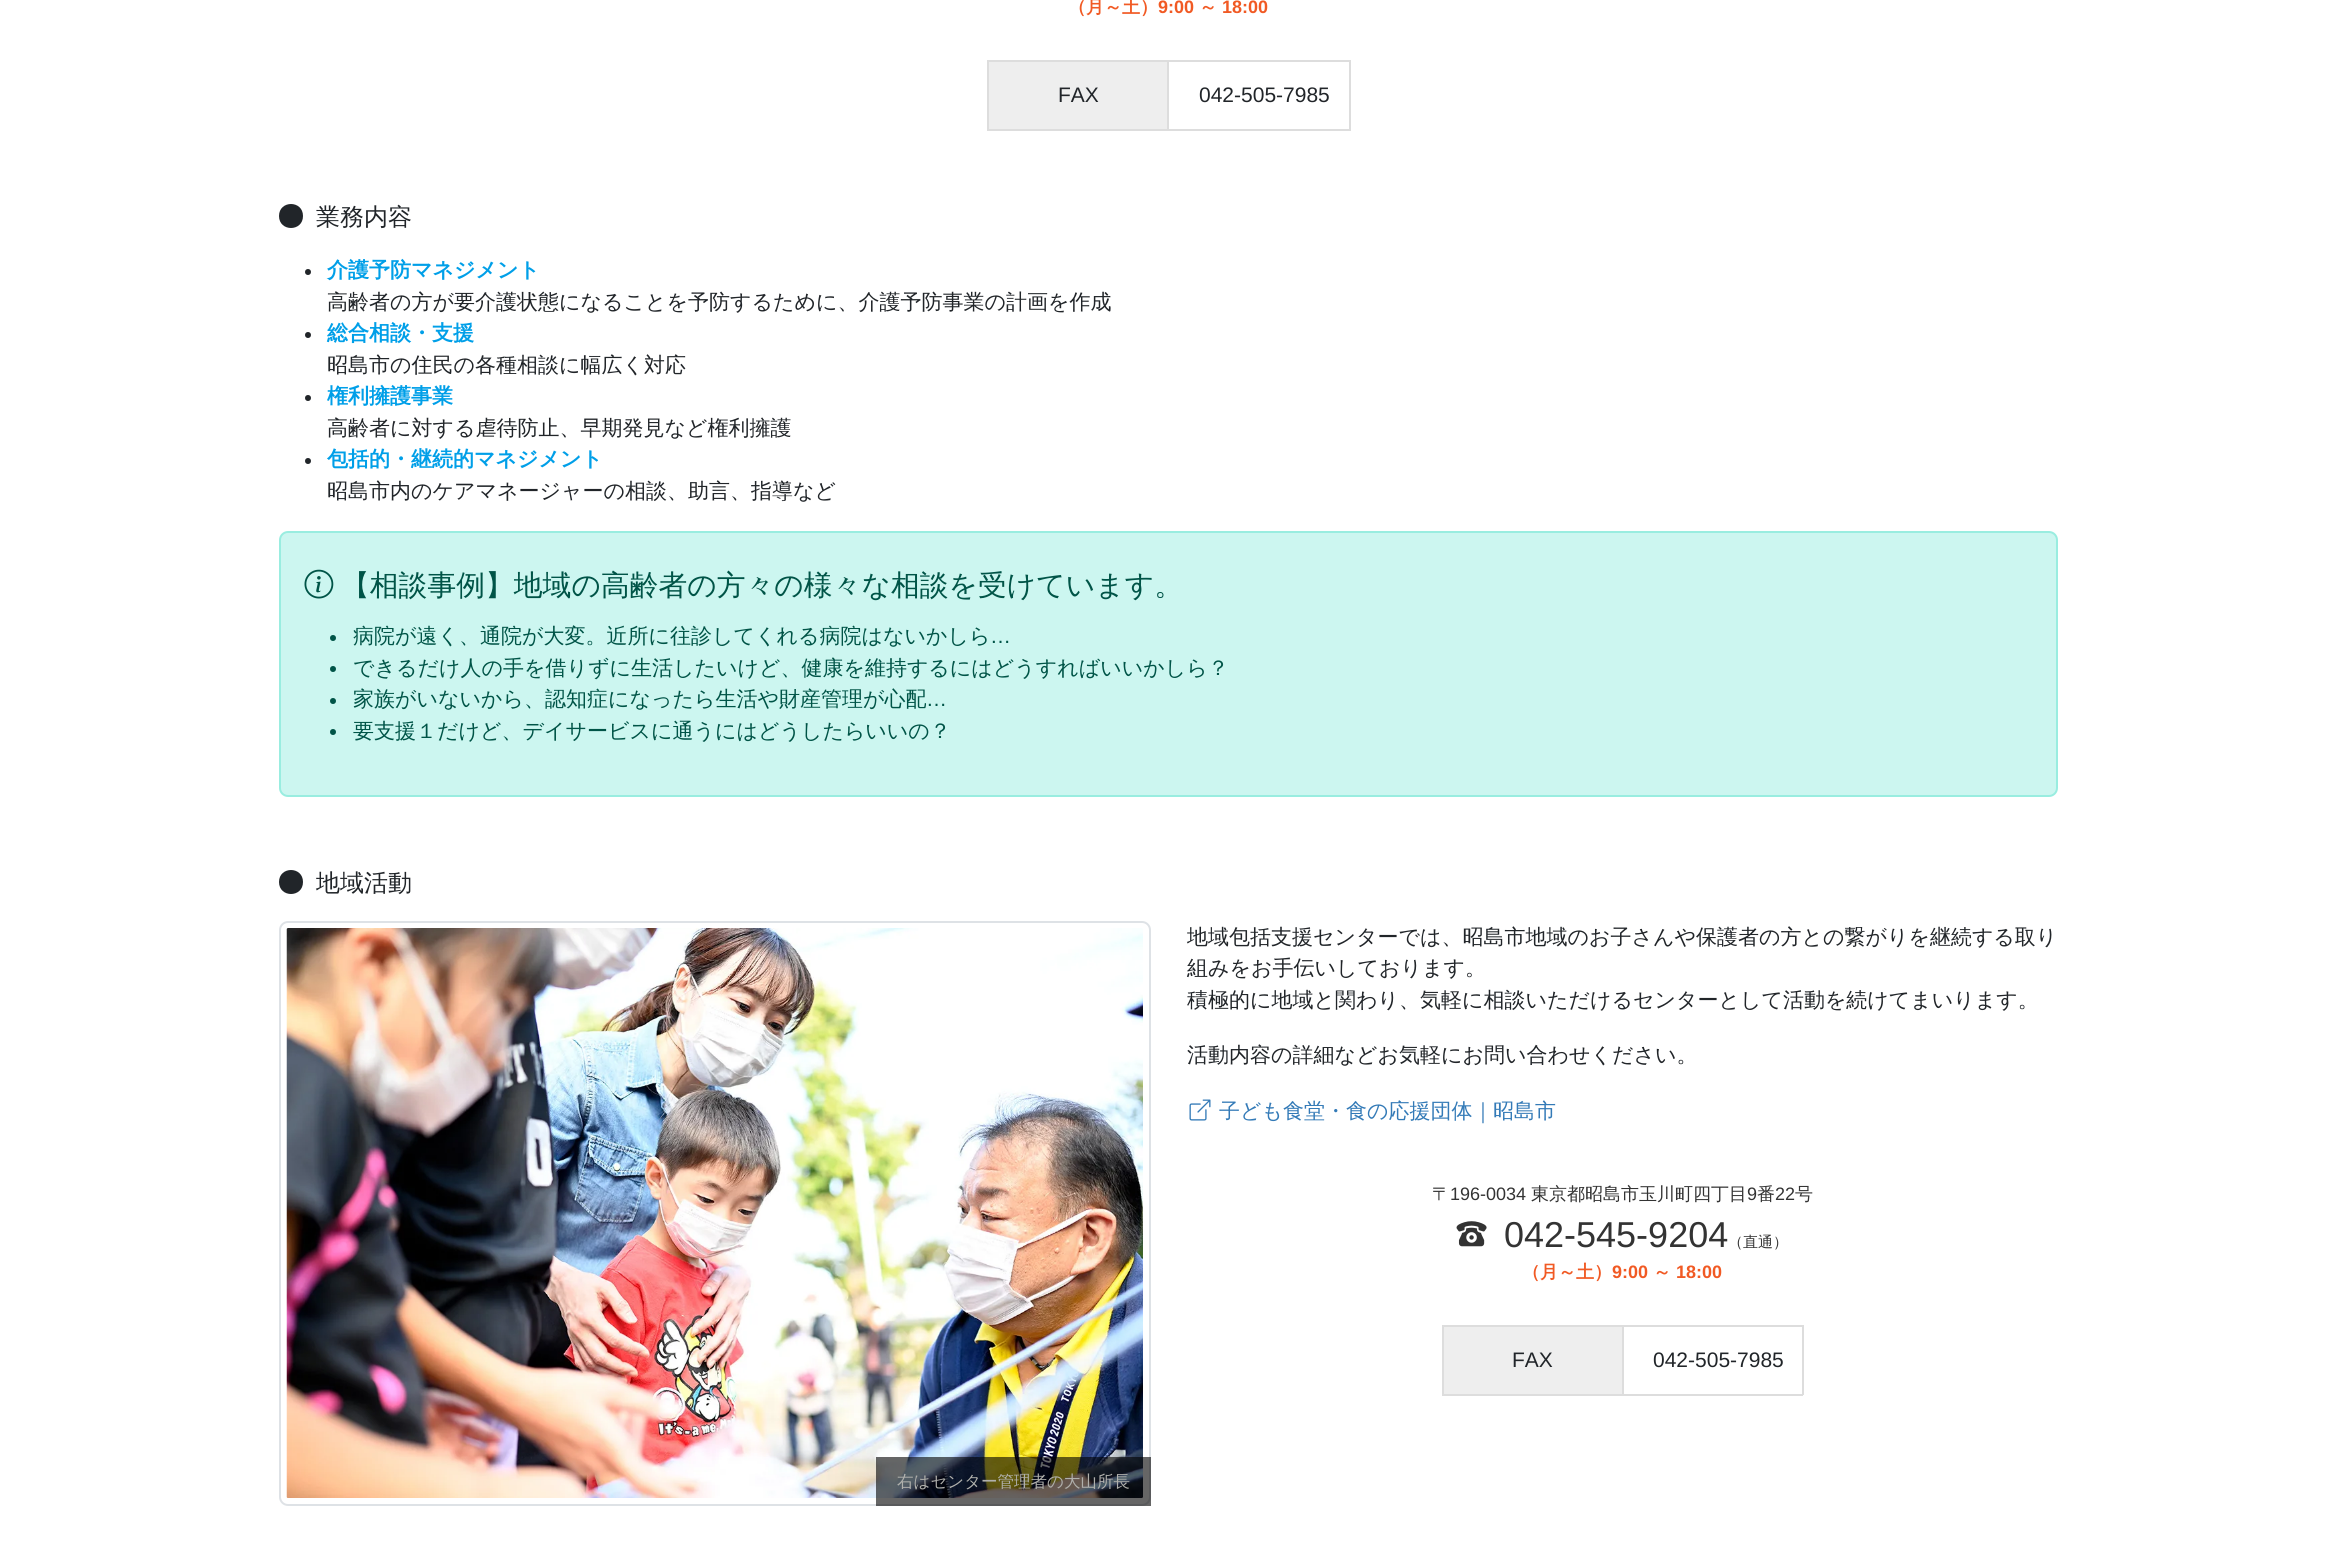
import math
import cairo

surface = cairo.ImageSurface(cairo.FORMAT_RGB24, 2336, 1560)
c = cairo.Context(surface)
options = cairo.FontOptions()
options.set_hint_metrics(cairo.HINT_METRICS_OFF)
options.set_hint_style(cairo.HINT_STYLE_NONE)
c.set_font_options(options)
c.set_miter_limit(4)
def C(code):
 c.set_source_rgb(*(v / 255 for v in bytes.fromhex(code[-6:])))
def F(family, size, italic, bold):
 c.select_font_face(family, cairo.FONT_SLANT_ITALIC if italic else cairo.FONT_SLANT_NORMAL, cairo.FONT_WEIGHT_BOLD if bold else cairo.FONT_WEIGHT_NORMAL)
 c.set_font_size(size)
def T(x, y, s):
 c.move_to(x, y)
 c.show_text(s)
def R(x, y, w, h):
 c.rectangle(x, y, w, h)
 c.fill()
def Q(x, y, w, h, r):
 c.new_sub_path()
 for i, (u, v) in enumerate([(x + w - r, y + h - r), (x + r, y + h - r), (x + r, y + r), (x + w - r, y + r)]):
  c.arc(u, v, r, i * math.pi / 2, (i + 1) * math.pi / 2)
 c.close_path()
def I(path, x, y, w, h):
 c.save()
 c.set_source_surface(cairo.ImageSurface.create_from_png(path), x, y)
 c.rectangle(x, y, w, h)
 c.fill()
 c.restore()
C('ffffff')
c.paint()
F('WenQuanYi Zen Hei',18,0,1)
C('f15a24')
T(1068,13,'（月～土）')
F('Liberation Sans',18,0,1)
T(1158,13,'9:00')
F('WenQuanYi Zen Hei',18,0,1)
T(1199,13,'～')
F('Liberation Sans',18,0,1)
T(1222,13,'18:00')
C('dddddd')
R(987,60,363,2)
R(1349,60,2,71)
R(987,129,363,2)
R(987,60,2,71)
C('eeeeee')
R(989,62,178,67)
F('Liberation Sans',21,0,0)
C('212529')
T(1058,102,'FAX')
C('dddddd')
R(1167,60,2,71)
C('212529')
T(1199,102,'042-505-7985')
c.new_path()
c.move_to(279,216)
c.curve_to(279,232,303,232,303,216)
c.curve_to(303,200,279,200,279,216)
c.close_path()
c.fill()
F('WenQuanYi Zen Hei Medium',24,0,0)
T(316,225,'業務内容')
c.new_path()
c.arc(308,272,3,0,2 * math.pi)
c.fill()
F('WenQuanYi Zen Hei',21,0,1)
C('009fe8')
T(327,277,'介護予防マネジメント')
F('WenQuanYi Zen Hei Medium',21,0,0)
C('212529')
T(327,309,'高齢者の方が要介護状態になることを予防するために、介護予防事業の計画を作成')
c.new_path()
c.arc(308,335,3,0,2 * math.pi)
c.fill()
F('WenQuanYi Zen Hei',21,0,1)
C('009fe8')
T(327,340,'総合相談・支援')
F('WenQuanYi Zen Hei Medium',21,0,0)
C('212529')
T(327,372,'昭島市の住民の各種相談に幅広く対応')
c.new_path()
c.arc(308,398,3,0,2 * math.pi)
c.fill()
F('WenQuanYi Zen Hei',21,0,1)
C('009fe8')
T(327,403,'権利擁護事業')
F('WenQuanYi Zen Hei Medium',21,0,0)
C('212529')
T(327,435,'高齢者に対する虐待防止、早期発見など権利擁護')
c.new_path()
c.arc(308,461,3,0,2 * math.pi)
c.fill()
F('WenQuanYi Zen Hei',21,0,1)
C('009fe8')
T(327,466,'包括的・継続的マネジメント')
F('WenQuanYi Zen Hei Medium',21,0,0)
C('212529')
T(327,498,'昭島市内のケアマネージャーの相談、助言、指導など')
C('ccf6f0')
Q(280,532,1777,264,8)
c.fill_preserve()
C('99ede0')
c.stroke()
I('1.png',304,569,30,30)
F('WenQuanYi Zen Hei Medium',28.8,0,0)
C('005447')
T(341,595,'【相談事例】地域の高齢者の方々の様々な相談を受けています。')
c.new_path()
c.arc(333,638,3,0,2 * math.pi)
c.fill()
F('WenQuanYi Zen Hei Medium',21,0,0)
T(353,643,'病院が遠く、通院が大変。近所に往診してくれる病院はないかしら')
F('Liberation Sans',21,0,0)
T(990,643,'…')
c.new_path()
c.arc(333,669,3,0,2 * math.pi)
c.fill()
F('WenQuanYi Zen Hei Medium',21,0,0)
T(353,675,'できるだけ人の手を借りずに生活したいけど、健康を維持するにはどうすればいいかしら？')
c.new_path()
c.arc(333,701,3,0,2 * math.pi)
c.fill()
T(353,706,'家族がいないから、認知症になったら生活や財産管理が心配')
F('Liberation Sans',21,0,0)
T(926,706,'…')
c.new_path()
c.arc(333,732,3,0,2 * math.pi)
c.fill()
F('WenQuanYi Zen Hei Medium',21,0,0)
T(353,738,'要支援１だけど、デイサービスに通うにはどうしたらいいの？')
C('212529')
c.new_path()
c.move_to(279,882)
c.curve_to(279,898,303,898,303,882)
c.curve_to(303,866,279,866,279,882)
c.close_path()
c.fill()
F('WenQuanYi Zen Hei Medium',24,0,0)
T(316,891,'地域活動')
F('WenQuanYi Zen Hei Medium',21,0,0)
T(1187,944,'地域包括支援センターでは、昭島市地域のお子さんや保護者の方との繋がりを継続する取り')
T(1187,975,'組みをお手伝いしております。')
T(1187,1007,'積極的に地域と関わり、気軽に相談いただけるセンターとして活動を続けてまいります。')
T(1187,1062,'活動内容の詳細などお気軽にお問い合わせください。')
I('2.png',1189,1099,22,22)
C('337ab7')
T(1219,1118,'子ども食堂・食の応援団体｜昭島市')
F('WenQuanYi Zen Hei Medium',18,0,0)
C('333333')
T(1432,1200,'〒')
F('Liberation Sans',18,0,0)
T(1450,1200,'196-0034')
F('WenQuanYi Zen Hei Medium',18,0,0)
T(1531,1200,'東京都昭島市玉川町四丁目')
F('Liberation Sans',18,0,0)
T(1747,1200,'9')
F('WenQuanYi Zen Hei Medium',18,0,0)
T(1757,1200,'番')
F('Liberation Sans',18,0,0)
T(1775,1200,'22')
F('WenQuanYi Zen Hei Medium',18,0,0)
T(1795,1200,'号')
I('3.png',1456,1221,31,26)
F('Liberation Sans',36,0,0)
T(1504,1247,'042-545-9204')
F('WenQuanYi Zen Hei Medium',15,0,0)
T(1728,1247,'（直通）')
F('WenQuanYi Zen Hei',18,0,1)
C('f15a24')
T(1522,1278,'（月～土）')
F('Liberation Sans',18,0,1)
T(1612,1278,'9:00')
F('WenQuanYi Zen Hei',18,0,1)
T(1653,1278,'～')
F('Liberation Sans',18,0,1)
T(1676,1278,'18:00')
C('dddddd')
R(1442,1325,361,2)
R(1802,1325,2,70)
R(1442,1394,361,2)
R(1442,1325,2,70)
C('eeeeee')
R(1444,1327,178,67)
F('Liberation Sans',21,0,0)
C('212529')
T(1512,1367,'FAX')
C('dddddd')
R(1622,1325,2,70)
C('212529')
T(1653,1367,'042-505-7985')
Q(280,922,870,583,8)
C('dee2e6')
c.stroke()
I('4.png',286,928,857,570)
c.set_source_rgba(0,0,0,0.6)
R(876,1457,275,49)
F('WenQuanYi Zen Hei Medium',16.5,0,0)
C('b0b0ac')
T(897,1487,'右はセンター管理者の大山所長')
surface.write_to_png('o.png')
